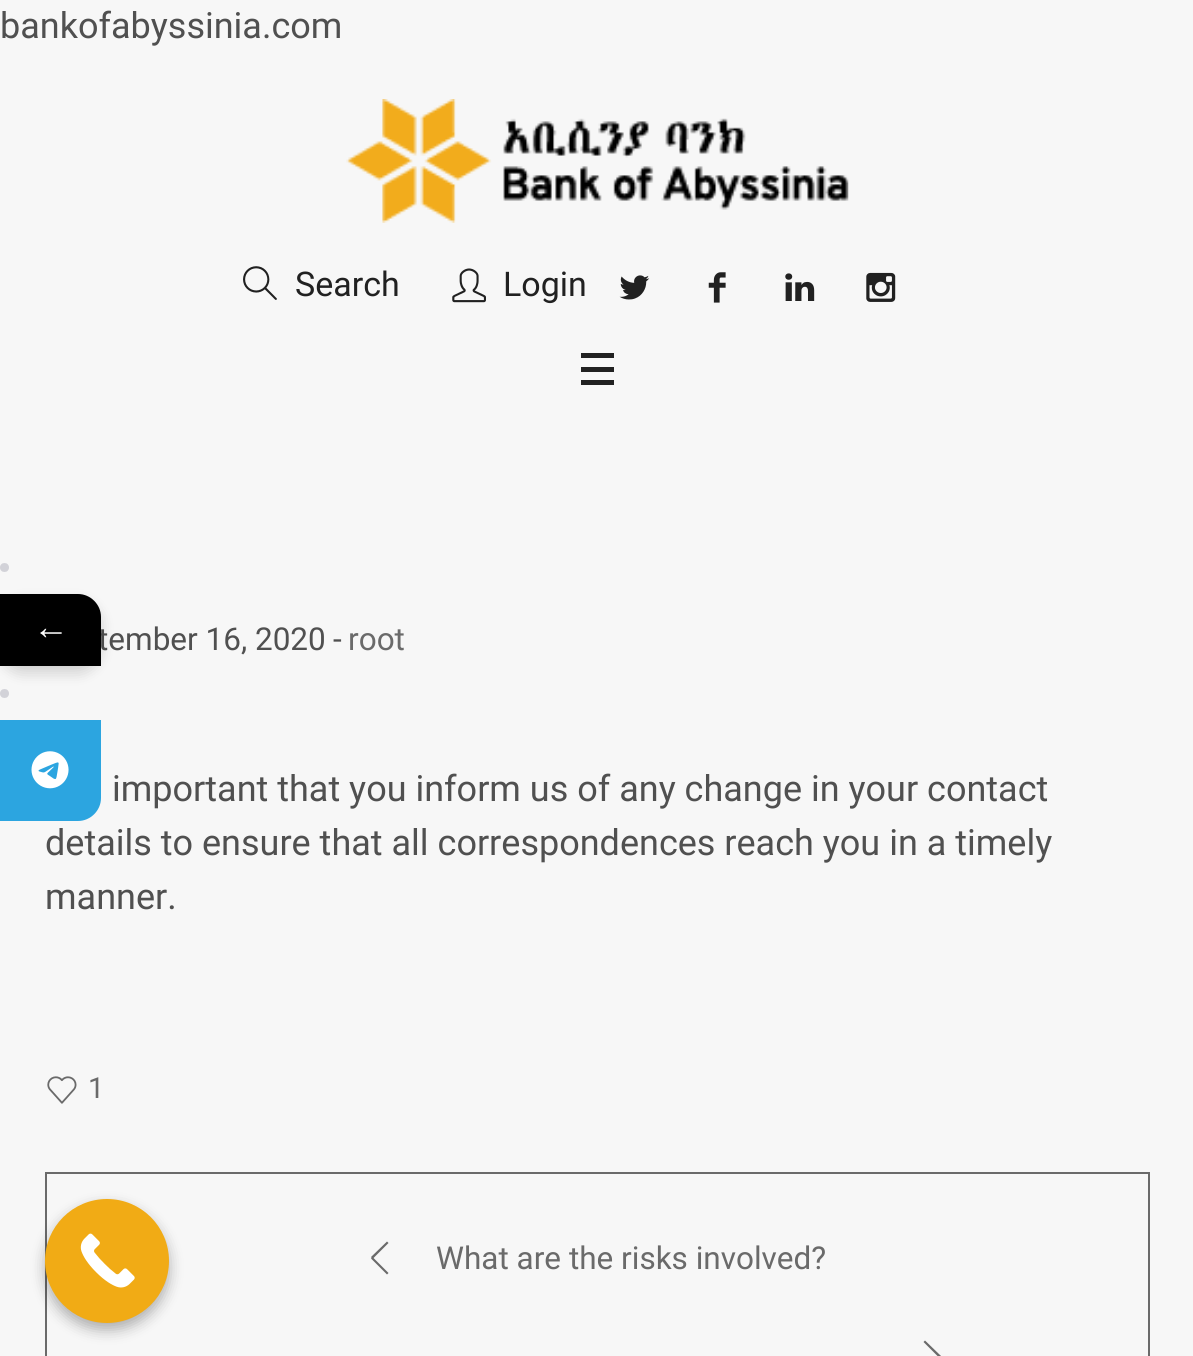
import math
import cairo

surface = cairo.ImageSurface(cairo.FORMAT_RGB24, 1193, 1356)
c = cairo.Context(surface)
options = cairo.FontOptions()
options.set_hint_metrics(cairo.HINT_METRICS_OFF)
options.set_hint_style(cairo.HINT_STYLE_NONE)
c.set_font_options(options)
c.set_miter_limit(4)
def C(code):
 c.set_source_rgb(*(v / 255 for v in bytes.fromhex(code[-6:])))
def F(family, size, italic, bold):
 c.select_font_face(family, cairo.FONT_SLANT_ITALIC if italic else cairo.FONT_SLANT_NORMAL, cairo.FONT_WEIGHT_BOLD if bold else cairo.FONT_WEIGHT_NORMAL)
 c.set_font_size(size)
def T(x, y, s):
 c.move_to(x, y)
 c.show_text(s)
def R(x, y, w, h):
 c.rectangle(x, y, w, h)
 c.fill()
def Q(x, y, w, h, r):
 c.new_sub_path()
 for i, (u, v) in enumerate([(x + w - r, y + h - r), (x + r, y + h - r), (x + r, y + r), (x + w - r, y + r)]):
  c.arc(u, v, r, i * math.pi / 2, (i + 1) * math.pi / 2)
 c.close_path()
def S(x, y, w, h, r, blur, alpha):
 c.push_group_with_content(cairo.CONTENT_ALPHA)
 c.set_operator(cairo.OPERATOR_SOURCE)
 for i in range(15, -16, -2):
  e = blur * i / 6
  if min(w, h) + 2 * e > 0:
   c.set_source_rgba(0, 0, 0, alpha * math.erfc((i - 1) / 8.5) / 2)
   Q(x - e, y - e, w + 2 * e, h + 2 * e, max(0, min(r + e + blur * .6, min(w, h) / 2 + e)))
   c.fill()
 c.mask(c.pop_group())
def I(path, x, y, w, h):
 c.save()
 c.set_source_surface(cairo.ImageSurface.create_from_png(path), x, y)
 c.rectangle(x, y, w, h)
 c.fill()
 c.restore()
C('f7f7f7')
c.paint()
F('Roboto',36,0,0)
C('505050')
T(0,38,'bankofabyssinia.com')
I('1.png',346,99,503,124)
I('2.png',243,266,34,34)
F('Roboto',34,0,0)
C('212121')
T(295,296,'Search')
I('3.png',452,268,34,35)
T(503,296,'Login')
I('4.png',619,275,31,25)
I('5.png',708,272,18,31)
I('6.png',785,273,30,28)
I('7.png',866,272,30,30)
R(581,367,33,5)
R(581,353,33,5)
R(581,380,33,5)
F('Roboto',31.5,0,0)
C('505050')
T(98,650,'tember 16, 2020')
T(333,650,'-')
C('6a6a6a')
T(348,650,'root')
F('Roboto',36,0,0)
C('505050')
T(112,801,'important that you inform us of any change in your contact')
T(45,855,'details to ensure that all correspondences reach you in a timely')
T(45,909,'manner.')
I('8.png',47,1076,30,28)
F('Roboto',29,0,0)
C('6a6a6a')
T(88,1098,'1')
c.rectangle(46,1173,1103,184)
c.stroke()
c.new_path()
c.move_to(372.5,1257)
c.line_to(388.5,1273)
c.line_to(387,1274.5)
c.line_to(371,1258.5)
c.close_path()
c.fill()
c.new_path()
c.move_to(388.5,1243)
c.line_to(372.5,1259)
c.line_to(371,1257)
c.line_to(387,1241.5)
c.close_path()
c.fill()
F('Roboto',31.5,0,0)
T(436,1269,'What are the risks involved?')
c.new_path()
c.move_to(925,1340.5)
c.line_to(941,1356)
c.line_to(939.5,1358)
c.line_to(923.5,1342)
c.close_path()
c.fill()
C('d2d2d8')
c.arc(4.5,567.5,4.5,0,2 * math.pi)
c.fill()
C('000000')
S(0,601,101,72,23,7,.16)
C('000000')
c.new_path()
c.move_to(0,594)
c.line_to(78,594)
c.curve_to(90.5,594,101,604.5,101,617)
c.line_to(101,666)
c.line_to(0,666)
c.close_path()
c.fill()
F('Liberation Serif',36,0,0)
C('ffffff')
T(33,639,'←')
C('d2d2d8')
c.new_path()
c.arc(4.5,693.5,4.5,0,2 * math.pi)
c.fill()
C('2ca5e0')
c.new_path()
c.move_to(0,720)
c.line_to(101,720)
c.line_to(101,798)
c.curve_to(101,810.5,90.5,821,78,821)
c.line_to(0,821)
c.close_path()
c.fill()
I('9.png',31,751,38,38)
C('000000')
S(45,1206,124,124,62,7,.3)
C('f1ab15')
c.arc(107,1261,62,0,2 * math.pi)
c.fill()
I('10.png',80,1233,55,55)
surface.write_to_png('o.png')
